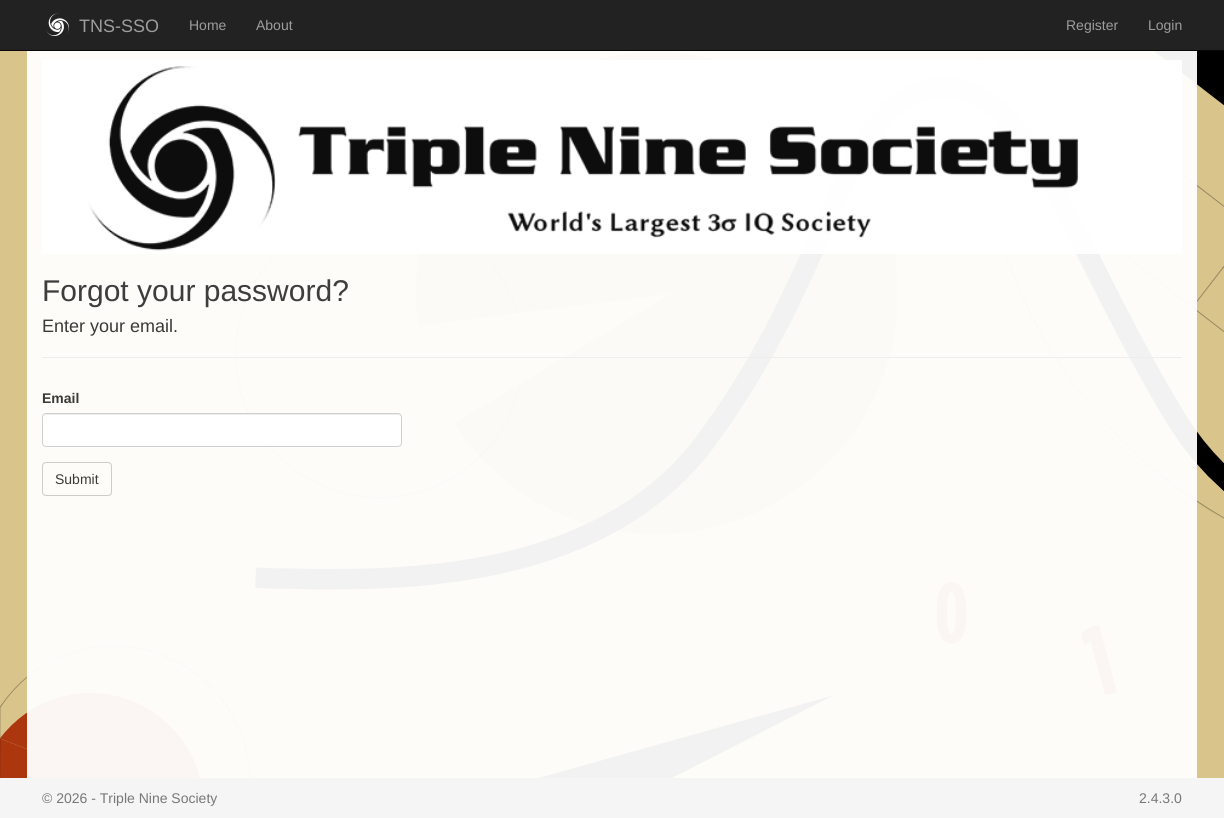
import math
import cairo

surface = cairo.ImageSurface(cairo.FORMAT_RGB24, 1224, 818)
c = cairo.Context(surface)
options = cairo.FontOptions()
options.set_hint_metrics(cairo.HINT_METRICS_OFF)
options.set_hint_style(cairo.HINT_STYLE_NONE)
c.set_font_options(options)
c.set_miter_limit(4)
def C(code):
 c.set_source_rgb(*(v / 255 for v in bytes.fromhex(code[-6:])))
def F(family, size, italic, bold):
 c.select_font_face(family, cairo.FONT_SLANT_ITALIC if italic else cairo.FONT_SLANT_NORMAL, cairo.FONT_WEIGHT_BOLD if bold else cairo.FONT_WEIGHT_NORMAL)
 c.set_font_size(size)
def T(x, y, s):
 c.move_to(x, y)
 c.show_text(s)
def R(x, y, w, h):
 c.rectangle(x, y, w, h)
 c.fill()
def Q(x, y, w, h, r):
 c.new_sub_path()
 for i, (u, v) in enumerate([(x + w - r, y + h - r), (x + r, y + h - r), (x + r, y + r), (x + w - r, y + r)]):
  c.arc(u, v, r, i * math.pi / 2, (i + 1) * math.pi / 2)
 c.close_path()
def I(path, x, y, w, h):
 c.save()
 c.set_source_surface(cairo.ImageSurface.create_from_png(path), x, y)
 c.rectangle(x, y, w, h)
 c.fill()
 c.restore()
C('ffffff')
c.paint()
I('1.png',0,51,1224,727)
C('222222')
R(0,0,1224,50)
C('080808')
R(0,50,1224,1)
I('2.png',46,13,23,23)
F('Liberation Sans',18,0,0)
C('9d9d9d')
T(79,32,'TNS-SSO')
F('Liberation Sans',14,0,0)
T(189,30,'Home')
T(256,30,'About')
T(1066,30,'Register')
T(1148,30,'Login')
I('3.png',42,60,1140,194)
F('Liberation Sans',30,0,0)
C('3d3d3d')
T(42,301,'Forgot your password?')
F('Liberation Sans',18,0,0)
C('3b3a37')
T(42,332,'Enter your email.')
c.set_source_rgba(0.933,0.933,0.933,0.95)
R(42,357,1140,1)
F('Liberation Sans',14,0,1)
C('3b3a37')
T(42,403,'Email')
c.set_source_rgba(1,1,1,0.95)
Q(42,413,360,34,4)
c.fill()
C('ededed')
c.new_path()
c.move_to(46,415)
c.line_to(398,415)
c.curve_to(400,415,401,416,401,418)
c.curve_to(401,416,400,414,398,414)
c.line_to(46,414)
c.line_to(44,415)
c.line_to(43,418)
c.curve_to(43,416,44,415,46,415)
c.close_path()
c.fill()
Q(42.5,413.5,359,33,3.5)
C('cfcfcf')
c.set_line_width(1)
c.stroke()
Q(42.5,462.5,69,33,3.5)
C('cdccc9')
c.stroke()
F('Liberation Sans',14,0,0)
C('3b3a37')
T(55,484,'Submit')
C('f5f5f5')
R(0,778,1224,40)
C('777777')
T(42,803,'© 2026 - Triple Nine Society')
T(1139,803,'2.4.3.0')
surface.write_to_png('o.png')
